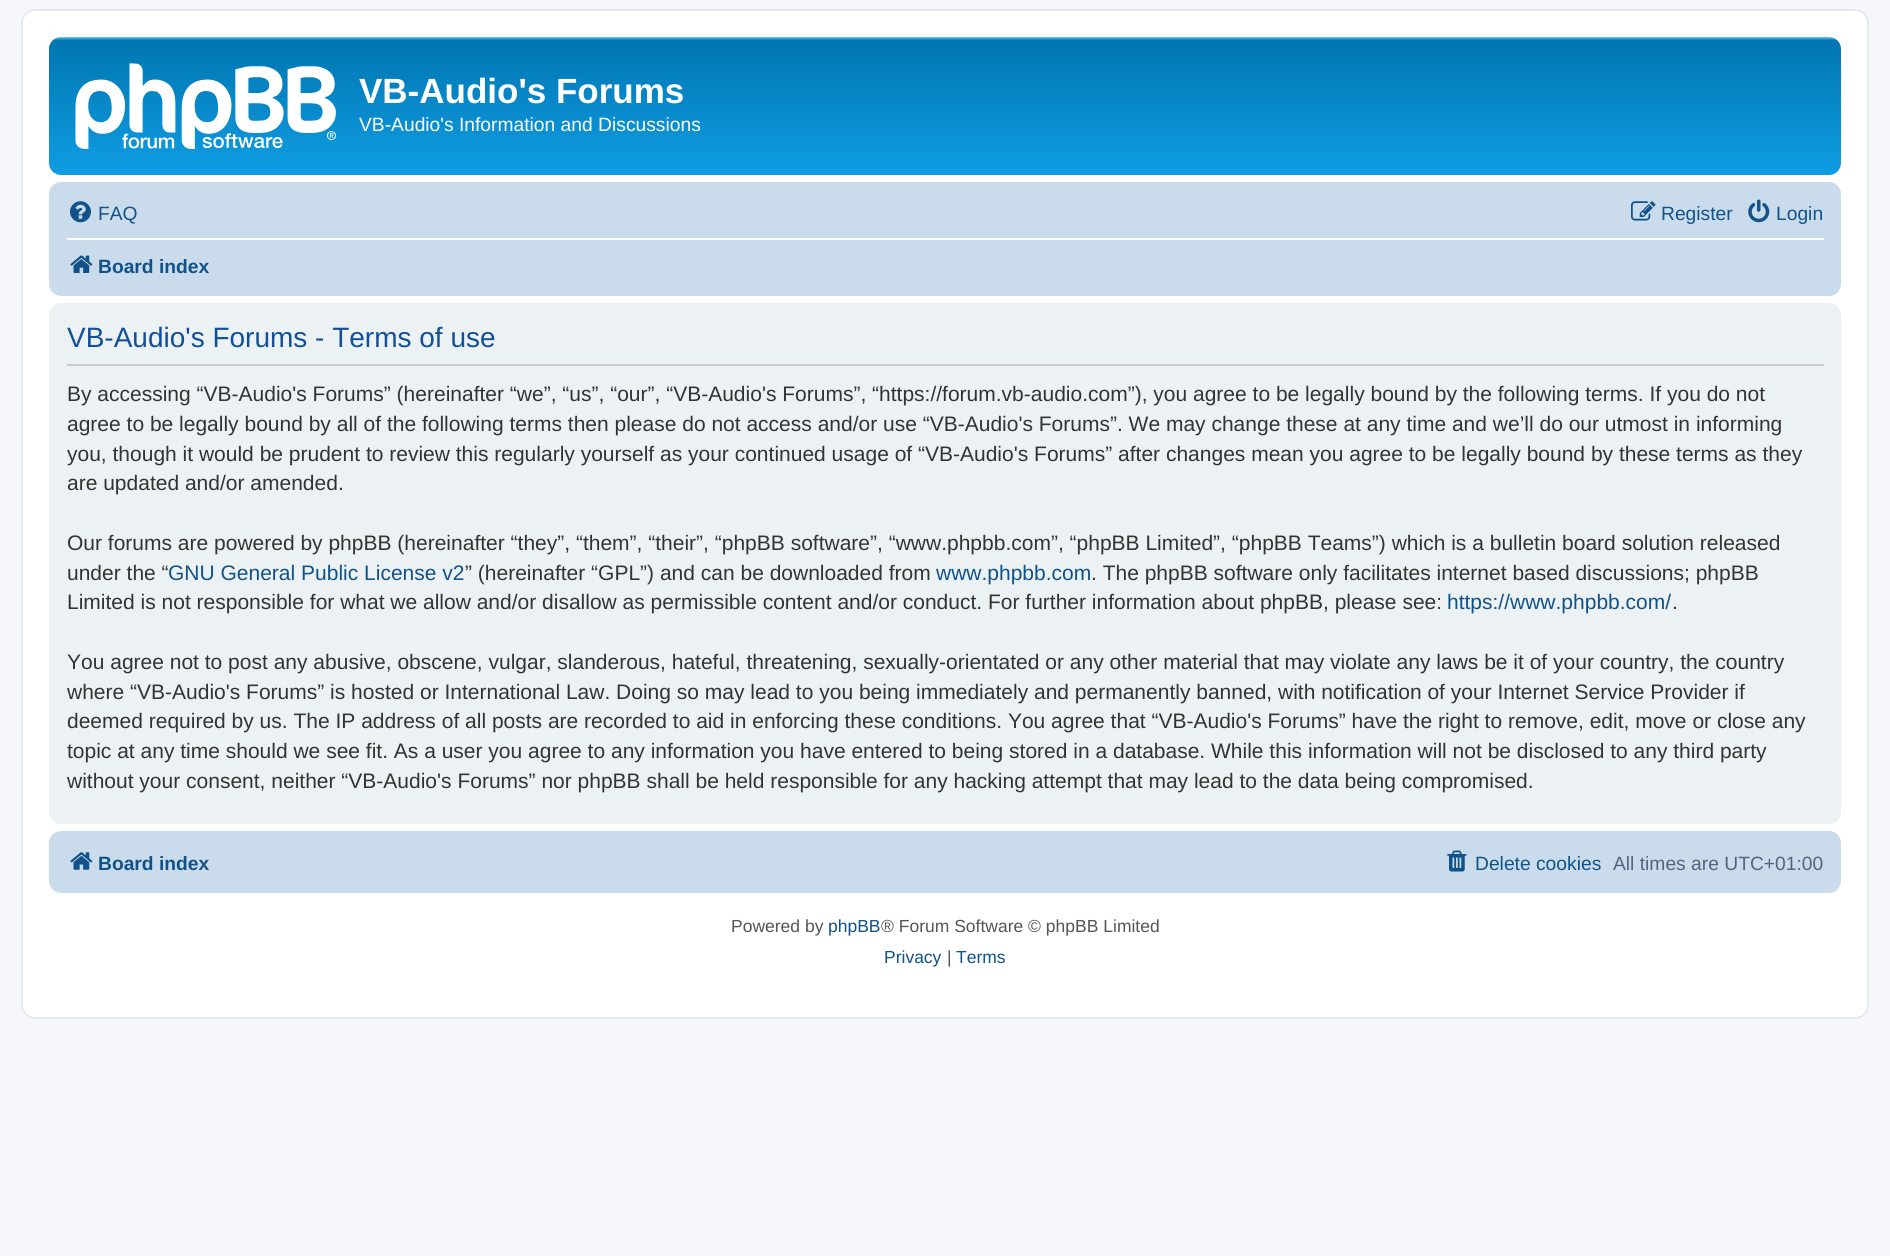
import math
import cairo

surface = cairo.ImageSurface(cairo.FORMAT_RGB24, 1890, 1256)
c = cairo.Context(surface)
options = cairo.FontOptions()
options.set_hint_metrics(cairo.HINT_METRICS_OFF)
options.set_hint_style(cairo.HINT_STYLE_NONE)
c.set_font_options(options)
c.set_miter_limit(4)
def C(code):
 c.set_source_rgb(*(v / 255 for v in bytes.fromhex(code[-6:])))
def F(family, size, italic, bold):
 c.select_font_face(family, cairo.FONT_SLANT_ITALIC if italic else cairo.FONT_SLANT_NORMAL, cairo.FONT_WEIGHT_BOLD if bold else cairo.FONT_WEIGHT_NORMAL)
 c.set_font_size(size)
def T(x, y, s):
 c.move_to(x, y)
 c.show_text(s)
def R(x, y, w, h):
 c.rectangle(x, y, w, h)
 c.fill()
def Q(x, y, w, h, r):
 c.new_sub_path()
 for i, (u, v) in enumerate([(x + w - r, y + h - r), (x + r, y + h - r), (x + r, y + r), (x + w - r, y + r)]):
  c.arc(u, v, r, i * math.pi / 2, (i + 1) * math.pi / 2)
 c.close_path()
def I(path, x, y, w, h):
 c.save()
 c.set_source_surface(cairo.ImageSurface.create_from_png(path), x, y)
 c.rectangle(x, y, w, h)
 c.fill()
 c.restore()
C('f5f7fa')
c.paint()
C('ffffff')
Q(22,10,1846,1008,13)
c.fill_preserve()
C('e6e9ed')
c.stroke()
gradient = cairo.LinearGradient(945,37,945,198)
gradient.add_color_stop_rgba(0,0.416,0.808,1,1)
gradient.add_color_stop_rgba(.02,0,0.463,0.694,1)
gradient.add_color_stop_rgba(1,0.071,0.639,0.922,1)
c.set_source(gradient)
Q(49,37,1792,138,12)
c.fill()
I('1.png',75,63,261,86)
F('Liberation Sans',35,0,1)
C('ffffff')
T(359,103,'VB-Audio\'s Forums')
F('Liberation Sans',19.25,0,0)
T(359,131,'VB-Audio\'s Information and Discussions')
C('cadceb')
Q(49,182,1792,114,12)
c.fill()
I('2.png',70,201,21,22)
C('105289')
T(98,220,'FAQ')
I('3.png',1631,201,25,20)
T(1661,220,'Register')
I('4.png',1748,199,22,24)
T(1776,220,'Login')
C('ffffff')
R(67,238,1757,2)
I('5.png',70,255,23,18)
F('Liberation Sans',19.25,0,1)
C('105289')
T(98,273,'Board index')
C('ecf1f3')
Q(49,303,1792,521,12)
c.fill()
C('cccccc')
R(67,364,1757,2)
F('Liberation Sans',28,0,0)
C('115098')
T(67,347,'VB-Audio\'s Forums - Terms of use')
F('Liberation Sans',21,0,0)
C('333333')
T(67,401,'By accessing “VB-Audio\'s Forums” (hereinafter “we”, “us”, “our”, “VB-Audio\'s Forums”, “https://forum.vb-audio.com”), you agree to be legally bound by the following terms. If you do not')
T(67,431,'agree to be legally bound by all of the following terms then please do not access and/or use “VB-Audio\'s Forums”. We may change these at any time and we’ll do our utmost in informing')
T(67,461,'you, though it would be prudent to review this regularly yourself as your continued usage of “VB-Audio\'s Forums” after changes mean you agree to be legally bound by these terms as they')
T(67,490,'are updated and/or amended.')
T(67,550,'Our forums are powered by phpBB (hereinafter “they”, “them”, “their”, “phpBB software”, “www.phpbb.com”, “phpBB Limited”, “phpBB Teams”) which is a bulletin board solution released')
T(67,580,'under the “')
C('105289')
T(168,580,'GNU General Public License v2')
C('333333')
T(465,580,'” (hereinafter “GPL”) and can be downloaded from')
C('105289')
T(936,580,'www.phpbb.com')
C('333333')
T(1091,580,'. The phpBB software only facilitates internet based discussions; phpBB')
T(67,609,'Limited is not responsible for what we allow and/or disallow as permissible content and/or conduct. For further information about phpBB, please see:')
C('105289')
T(1447,609,'https://www.phpbb.com/')
C('333333')
T(1672,609,'.')
T(67,669,'You agree not to post any abusive, obscene, vulgar, slanderous, hateful, threatening, sexually-orientated or any other material that may violate any laws be it of your country, the country')
T(67,699,'where “VB-Audio\'s Forums” is hosted or International Law. Doing so may lead to you being immediately and permanently banned, with notification of your Internet Service Provider if')
T(67,728,'deemed required by us. The IP address of all posts are recorded to aid in enforcing these conditions. You agree that “VB-Audio\'s Forums” have the right to remove, edit, move or close any')
T(67,758,'topic at any time should we see fit. As a user you agree to any information you have entered to being stored in a database. While this information will not be disclosed to any third party')
T(67,788,'without your consent, neither “VB-Audio\'s Forums” nor phpBB shall be held responsible for any hacking attempt that may lead to the data being compromised.')
C('cadceb')
Q(49,831,1792,62,12)
c.fill()
I('6.png',70,852,23,18)
F('Liberation Sans',19.25,0,1)
C('105289')
T(98,870,'Board index')
I('7.png',1447,850,20,22)
F('Liberation Sans',19.25,0,0)
T(1475,870,'Delete cookies')
C('536482')
T(1613,870,'All times are UTC+01:00')
F('Liberation Sans',17.5,0,0)
C('555555')
T(731,932,'Powered by')
C('105289')
T(828,932,'phpBB')
C('555555')
T(881,932,'® Forum Software © phpBB Limited')
C('105289')
T(884,963,'Privacy')
C('555555')
T(947,963,'|')
C('105289')
T(956,963,'Terms')
surface.write_to_png('o.png')
